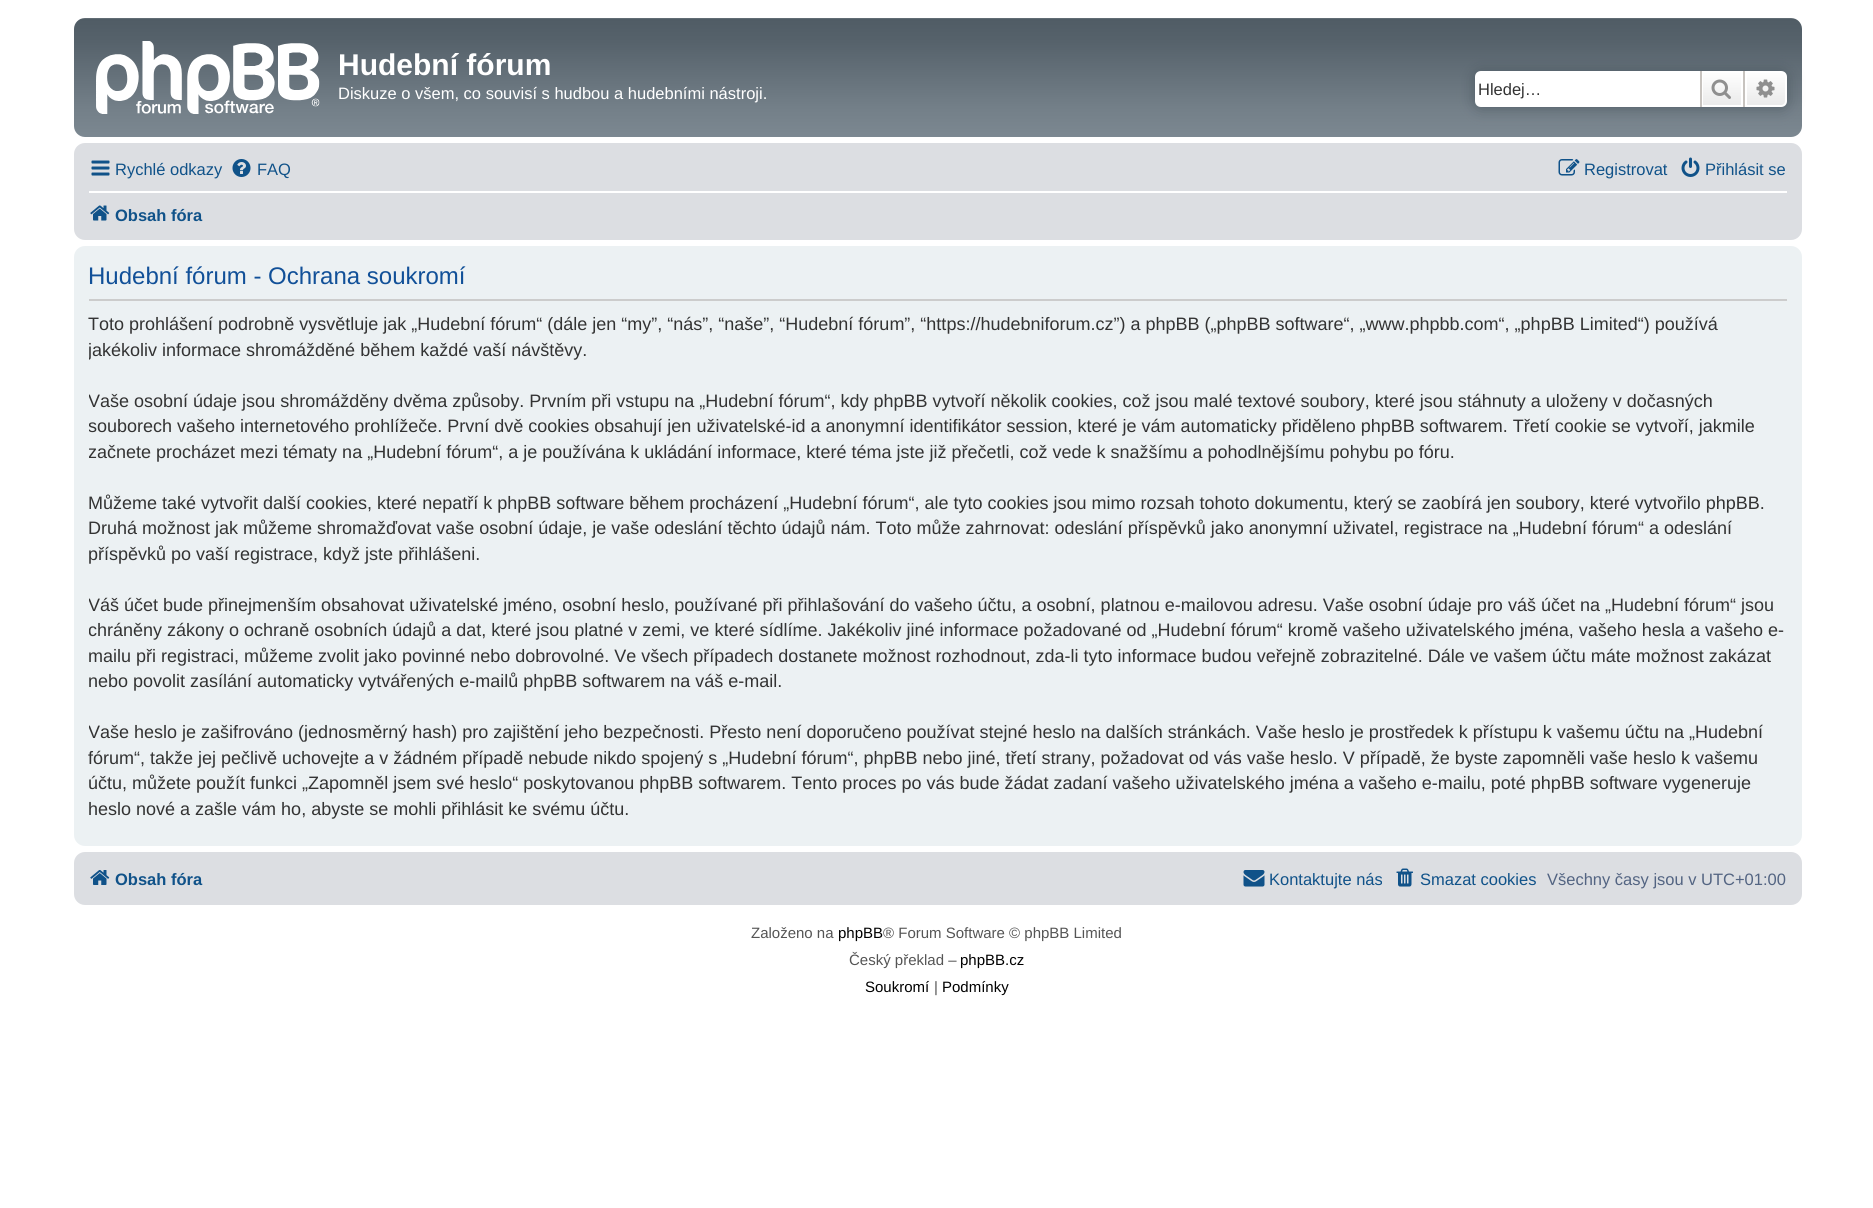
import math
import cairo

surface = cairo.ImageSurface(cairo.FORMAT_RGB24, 1873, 1208)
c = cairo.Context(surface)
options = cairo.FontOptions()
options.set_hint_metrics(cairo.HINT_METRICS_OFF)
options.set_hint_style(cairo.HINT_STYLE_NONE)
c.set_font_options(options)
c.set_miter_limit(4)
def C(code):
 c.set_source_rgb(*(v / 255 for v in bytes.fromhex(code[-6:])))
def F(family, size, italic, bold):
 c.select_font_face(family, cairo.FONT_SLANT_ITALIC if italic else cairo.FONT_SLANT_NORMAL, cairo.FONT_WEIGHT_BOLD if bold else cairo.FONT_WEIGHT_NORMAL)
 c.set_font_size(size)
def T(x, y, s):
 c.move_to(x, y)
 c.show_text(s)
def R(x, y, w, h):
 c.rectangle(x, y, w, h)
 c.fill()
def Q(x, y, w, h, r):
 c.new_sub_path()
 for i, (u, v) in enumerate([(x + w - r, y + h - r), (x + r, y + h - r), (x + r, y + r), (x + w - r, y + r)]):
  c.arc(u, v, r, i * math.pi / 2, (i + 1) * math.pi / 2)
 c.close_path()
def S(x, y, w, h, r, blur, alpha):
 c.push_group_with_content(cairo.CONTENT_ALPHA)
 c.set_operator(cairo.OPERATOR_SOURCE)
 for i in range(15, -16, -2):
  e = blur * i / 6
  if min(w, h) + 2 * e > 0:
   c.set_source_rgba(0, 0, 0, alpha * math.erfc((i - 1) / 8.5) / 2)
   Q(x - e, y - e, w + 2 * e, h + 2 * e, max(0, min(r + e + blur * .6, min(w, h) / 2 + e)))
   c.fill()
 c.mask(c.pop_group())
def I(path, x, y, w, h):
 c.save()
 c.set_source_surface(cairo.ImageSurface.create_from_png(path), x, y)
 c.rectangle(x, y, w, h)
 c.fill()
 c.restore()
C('ffffff')
c.paint()
gradient = cairo.LinearGradient(938,18,938,137)
gradient.add_color_stop_rgba(0,0.431,0.467,0.498,1)
gradient.add_color_stop_rgba(.01,0.314,0.361,0.396,1)
gradient.add_color_stop_rgba(.2,0.337,0.384,0.42,1)
gradient.add_color_stop_rgba(.75,0.451,0.498,0.533,1)
gradient.add_color_stop_rgba(1,0.486,0.533,0.569,1)
c.set_source(gradient)
Q(74,18,1728,119,11)
c.fill()
I('1.png',96,41,224,73)
F('Liberation Sans',30,0,1)
C('ffffff')
T(338,75,'Hudební fórum')
F('Liberation Sans',16.5,0,0)
T(338,99,'Diskuze o všem, co souvisí s hudbou a hudebními nástroji.')
C('505c65')
S(1475,71,312,36,6,7.5,1)
C('ffffff')
c.new_path()
c.move_to(1481,71)
c.line_to(1700,71)
c.line_to(1700,107)
c.line_to(1481,107)
c.curve_to(1477.5,107,1475,104.5,1475,101)
c.line_to(1475,77)
c.curve_to(1475,73.5,1477.5,71,1481,71)
c.close_path()
c.fill()
C('333333')
T(1478,95,'Hledej…')
gradient = cairo.LinearGradient(1722,71,1722,107)
gradient.add_color_stop_rgba(0,1,1,1,1)
gradient.add_color_stop_rgba(1,0.914,0.914,0.914,1)
c.set_source(gradient)
R(1703,73,38,32)
c.rectangle(1702,72,40,34)
C('ffffff')
c.stroke()
C('c7c3bf')
R(1743,71,2,36)
R(1700,71,2,36)
I('2.png',1711,79,20,20)
gradient = cairo.LinearGradient(1766,71,1766,107)
gradient.add_color_stop_rgba(0,1,1,1,1)
gradient.add_color_stop_rgba(1,0.914,0.914,0.914,1)
c.set_source(gradient)
c.new_path()
c.move_to(1746,72)
c.line_to(1781,72)
c.curve_to(1784,72,1786,74,1786,77)
c.line_to(1786,101)
c.curve_to(1786,104,1784,106,1781,106)
c.line_to(1746,106)
c.close_path()
c.fill_preserve()
C('ffffff')
c.stroke()
I('3.png',1756,79,19,19)
C('dcdee2')
Q(74,143,1728,97,11)
c.fill()
I('4.png',91,160,19,16)
C('105289')
T(115,175,'Rychlé odkazy')
I('5.png',232,159,19,18)
T(257,175,'FAQ')
I('6.png',1558,159,22,17)
T(1584,175,'Registrovat')
I('7.png',1681,157,19,20)
T(1705,175,'Přihlásit se')
C('ffffff')
R(89,191,1698,2)
I('8.png',90,205,20,16)
F('Liberation Sans',16.5,0,1)
C('105289')
T(115,221,'Obsah fóra')
C('ecf1f3')
Q(74,246,1728,600,11)
c.fill()
C('cccccc')
R(89,299,1698,2)
F('Liberation Sans',24,0,0)
C('115098')
T(88,284,'Hudební fórum - Ochrana soukromí')
F('Liberation Sans',18,0,0)
C('333333')
T(88,330,'Toto prohlášení podrobně vysvětluje jak „Hudební fórum“ (dále jen “my”, “nás”, “naše”, “Hudební fórum”, “https://hudebniforum.cz”) a phpBB („phpBB software“, „www.phpbb.com“, „phpBB Limited“) používá')
c.save()
c.rectangle(89,254,1698,585)
c.clip()
T(88,356,'jakékoliv informace shromážděné během každé vaší návštěvy.')
T(88,407,'Vaše osobní údaje jsou shromážděny dvěma způsoby. Prvním při vstupu na „Hudební fórum“, kdy phpBB vytvoří několik cookies, což jsou malé textové soubory, které jsou stáhnuty a uloženy v dočasných')
T(88,432,'souborech vašeho internetového prohlížeče. První dvě cookies obsahují jen uživatelské-id a anonymní identifikátor session, které je vám automaticky přiděleno phpBB softwarem. Třetí cookie se vytvoří, jakmile')
T(88,458,'začnete procházet mezi tématy na „Hudební fórum“, a je používána k ukládání informace, které téma jste již přečetli, což vede k snažšímu a pohodlnějšímu pohybu po fóru.')
c.restore()
T(88,509,'Můžeme také vytvořit další cookies, které nepatří k phpBB software během procházení „Hudební fórum“, ale tyto cookies jsou mimo rozsah tohoto dokumentu, který se zaobírá jen soubory, které vytvořilo phpBB.')
T(88,534,'Druhá možnost jak můžeme shromažďovat vaše osobní údaje, je vaše odeslání těchto údajů nám. Toto může zahrnovat: odeslání příspěvků jako anonymní uživatel, registrace na „Hudební fórum“ a odeslání')
T(88,560,'příspěvků po vaší registrace, když jste přihlášeni.')
c.save()
c.rectangle(89,254,1698,585)
c.clip()
T(88,611,'Váš účet bude přinejmenším obsahovat uživatelské jméno, osobní heslo, používané při přihlašování do vašeho účtu, a osobní, platnou e-mailovou adresu. Vaše osobní údaje pro váš účet na „Hudební fórum“ jsou')
T(88,636,'chráněny zákony o ochraně osobních údajů a dat, které jsou platné v zemi, ve které sídlíme. Jakékoliv jiné informace požadované od „Hudební fórum“ kromě vašeho uživatelského jména, vašeho hesla a vašeho e-')
c.restore()
T(88,662,'mailu při registraci, můžeme zvolit jako povinné nebo dobrovolné. Ve všech případech dostanete možnost rozhodnout, zda-li tyto informace budou veřejně zobrazitelné. Dále ve vašem účtu máte možnost zakázat')
T(88,687,'nebo povolit zasílání automaticky vytvářených e-mailů phpBB softwarem na váš e-mail.')
c.save()
c.rectangle(89,254,1698,585)
c.clip()
T(88,738,'Vaše heslo je zašifrováno (jednosměrný hash) pro zajištění jeho bezpečnosti. Přesto není doporučeno používat stejné heslo na dalších stránkách. Vaše heslo je prostředek k přístupu k vašemu účtu na „Hudební')
c.restore()
T(88,764,'fórum“, takže jej pečlivě uchovejte a v žádném případě nebude nikdo spojený s „Hudební fórum“, phpBB nebo jiné, třetí strany, požadovat od vás vaše heslo. V případě, že byste zapomněli vaše heslo k vašemu')
T(88,789,'účtu, můžete použít funkci „Zapomněl jsem své heslo“ poskytovanou phpBB softwarem. Tento proces po vás bude žádat zadaní vašeho uživatelského jména a vašeho e-mailu, poté phpBB software vygeneruje')
T(88,815,'heslo nové a zašle vám ho, abyste se mohli přihlásit ke svému účtu.')
C('dcdee2')
Q(74,852,1728,53,11)
c.fill()
I('9.png',90,870,20,15)
F('Liberation Sans',16.5,0,1)
C('105289')
T(115,885,'Obsah fóra')
I('10.png',1243,870,22,17)
F('Liberation Sans',16.5,0,0)
T(1269,885,'Kontaktujte nás')
I('11.png',1396,868,17,19)
T(1420,885,'Smazat cookies')
C('536482')
T(1547,885,'Všechny časy jsou v UTC+01:00')
F('Liberation Sans',15,0,0)
C('555555')
T(751,938,'Založeno na')
C('000000')
T(838,938,'phpBB')
C('555555')
T(883,938,'® Forum Software © phpBB Limited')
T(849,965,'Český překlad –')
C('000000')
T(960,965,'phpBB.cz')
T(865,992,'Soukromí')
C('555555')
T(934,992,'|')
C('000000')
T(942,992,'Podmínky')
surface.write_to_png('o.png')
